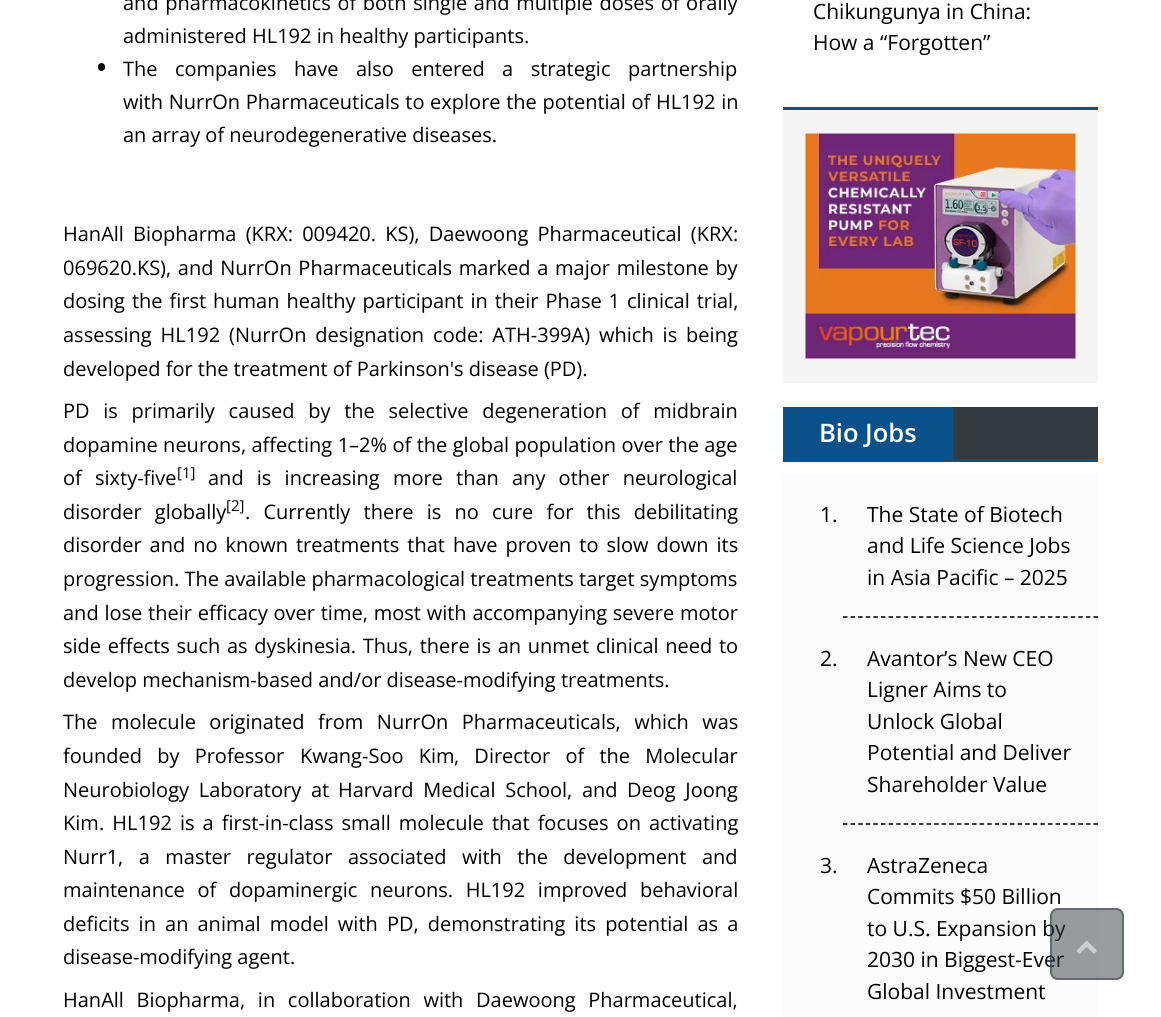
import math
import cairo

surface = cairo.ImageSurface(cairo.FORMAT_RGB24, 1161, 1017)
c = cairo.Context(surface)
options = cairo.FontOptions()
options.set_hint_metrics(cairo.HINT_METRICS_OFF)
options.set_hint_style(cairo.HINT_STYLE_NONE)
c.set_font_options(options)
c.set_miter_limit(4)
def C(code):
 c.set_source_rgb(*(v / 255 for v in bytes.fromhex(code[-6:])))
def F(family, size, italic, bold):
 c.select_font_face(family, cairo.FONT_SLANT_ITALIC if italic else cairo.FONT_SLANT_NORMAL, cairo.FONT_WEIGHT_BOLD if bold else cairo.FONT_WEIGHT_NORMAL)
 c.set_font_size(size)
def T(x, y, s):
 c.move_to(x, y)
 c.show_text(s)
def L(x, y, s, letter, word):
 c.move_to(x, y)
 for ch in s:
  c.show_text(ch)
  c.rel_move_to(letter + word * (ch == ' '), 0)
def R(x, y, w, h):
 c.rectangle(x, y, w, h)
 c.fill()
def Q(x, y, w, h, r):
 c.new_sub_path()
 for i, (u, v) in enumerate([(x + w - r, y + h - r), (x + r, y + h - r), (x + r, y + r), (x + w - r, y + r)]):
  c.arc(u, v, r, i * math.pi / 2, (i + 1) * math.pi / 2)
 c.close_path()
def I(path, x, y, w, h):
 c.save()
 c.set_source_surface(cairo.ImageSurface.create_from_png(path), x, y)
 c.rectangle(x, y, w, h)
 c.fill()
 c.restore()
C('ffffff')
c.paint()
F('Open Sans',20,0,0)
C('000000')
L(123,10,'and pharmacokinetics of both single and multiple doses of orally',0,1.5)
T(123,43,'administered HL192 in healthy participants.')
Q(98,63,7,8,3.5)
c.fill()
L(123,76,'The companies have also entered a strategic partnership',0,12.25)
L(123,109,'with NurrOn Pharmaceuticals to explore the potential of HL192 in',0,.5)
T(123,142,'an array of neurodegenerative diseases.')
L(63,241,'HanAll Biopharma (KRX: 009420. KS), Daewoong Pharmaceutical (KRX:',0,4)
L(63,275,'069620.KS), and NurrOn Pharmaceuticals marked a major milestone by',0,1.5)
L(63,308,'dosing the first human healthy participant in their Phase 1 clinical trial,',0,1.75)
L(63,342,'assessing HL192 (NurrOn designation code: ATH-399A) which is being',0,3.75)
T(63,376,'developed for the treatment of Parkinson\'s disease (PD).')
L(63,418,'PD is primarily caused by the selective degeneration of midbrain',0,8.5)
L(63,452,'dopamine neurons, affecting 1–2% of the global population over the age',0,.25)
L(63,485,'of sixty-five',0,8)
F('Open Sans',15,0,0)
T(177,478,'[1]')
F('Open Sans',20,0,0)
L(208,485,'and is increasing more than any other neurological',0,8)
L(63,519,'disorder globally',0,8)
F('Open Sans',15,0,0)
T(226,511,'[2]')
F('Open Sans',20,0,0)
L(245,519,'. Currently there is no cure for this debilitating',0,8)
L(63,552,'disorder and no known treatments that have proven to slow down its',0,2.75)
T(63,586,'progression. The available pharmacological treatments target symptoms')
L(63,620,'and lose their efficacy over time, most with accompanying severe motor',0,.6)
L(63,653,'side effects such as dyskinesia. Thus, there is an unmet clinical need to',0,1.5)
T(63,687,'develop mechanism-based and/or disease-modifying treatments.')
L(63,729,'The molecule originated from NurrOn Pharmaceuticals, which was',0,8.25)
L(63,763,'founded by Professor',0,10)
L(300,763,'Kwang-Soo Kim',0,10)
L(454,763,', Director of the Molecular',0,10)
L(63,797,'Neurobiology Laboratory at',0,4.5)
L(338,797,'Harvard Medical School, and',0,4.5)
L(627,797,'Deog Joong',0,4.5)
T(63,830,'Kim')
L(99,830,'. HL192 is a first-in-class small molecule that focuses on activating',0,2.9)
L(63,864,'Nurr1, a master regulator associated with the development and',0,10.25)
L(63,897,'maintenance of dopaminergic neurons. HL192 improved behavioral',0,7.5)
L(63,931,'deficits in an animal model with PD, demonstrating its potential as a',0,3.9)
T(63,964,'disease-modifying agent.')
L(63,1007,'HanAll Biopharma, in collaboration with Daewoong Pharmaceutical,',0,7.5)
F('Open Sans',21,0,0)
T(813,19,'Chikungunya in China:')
T(813,50,'How a “Forgotten”')
C('f5f5f5')
R(783,110,315,273)
C('08518b')
R(783,107,315,3)
I('1.png',805,133,271,226)
R(783,459,315,3)
C('343a40')
R(953,407,145,52)
C('08518b')
R(783,407,170,52)
F('Open Sans SemiBold',25.5,0,0)
C('ffffff')
T(819,442,'Bio Jobs')
C('fcfcfc')
R(783,474,315,543)
c.new_path()
c.move_to(843,617)
c.line_to(1098,617)
C('000000')
c.set_line_width(1.5)
c.set_dash([4.5,3.09])
c.stroke()
F('Open Sans',21,0,0)
T(820,522,'1.')
T(867,522,'The State of Biotech')
T(867,553,'and Life Science Jobs')
T(867,585,'in Asia Pacific – 2025')
c.new_path()
c.move_to(843,824)
c.line_to(1098,824)
c.stroke()
T(820,666,'2.')
T(867,666,'Avantor’s New CEO')
T(867,697,'Ligner Aims to')
T(867,729,'Unlock Global')
T(867,760,'Potential and Deliver')
T(867,792,'Shareholder Value')
T(820,873,'3.')
T(867,873,'AstraZeneca')
T(867,904,'Commits $50 Billion')
T(867,936,'to U.S. Expansion by')
T(867,967,'2030 in Biggest-Ever')
T(867,999,'Global Investment')
c.set_source_rgba(0.204,0.227,0.251,0.5)
Q(1050,908,74,72,8)
c.fill()
Q(1051,909,72,70,7)
c.set_line_width(2)
c.set_dash([])
c.stroke()
I('2.png',1076,940,21,14)
surface.write_to_png('o.png')
